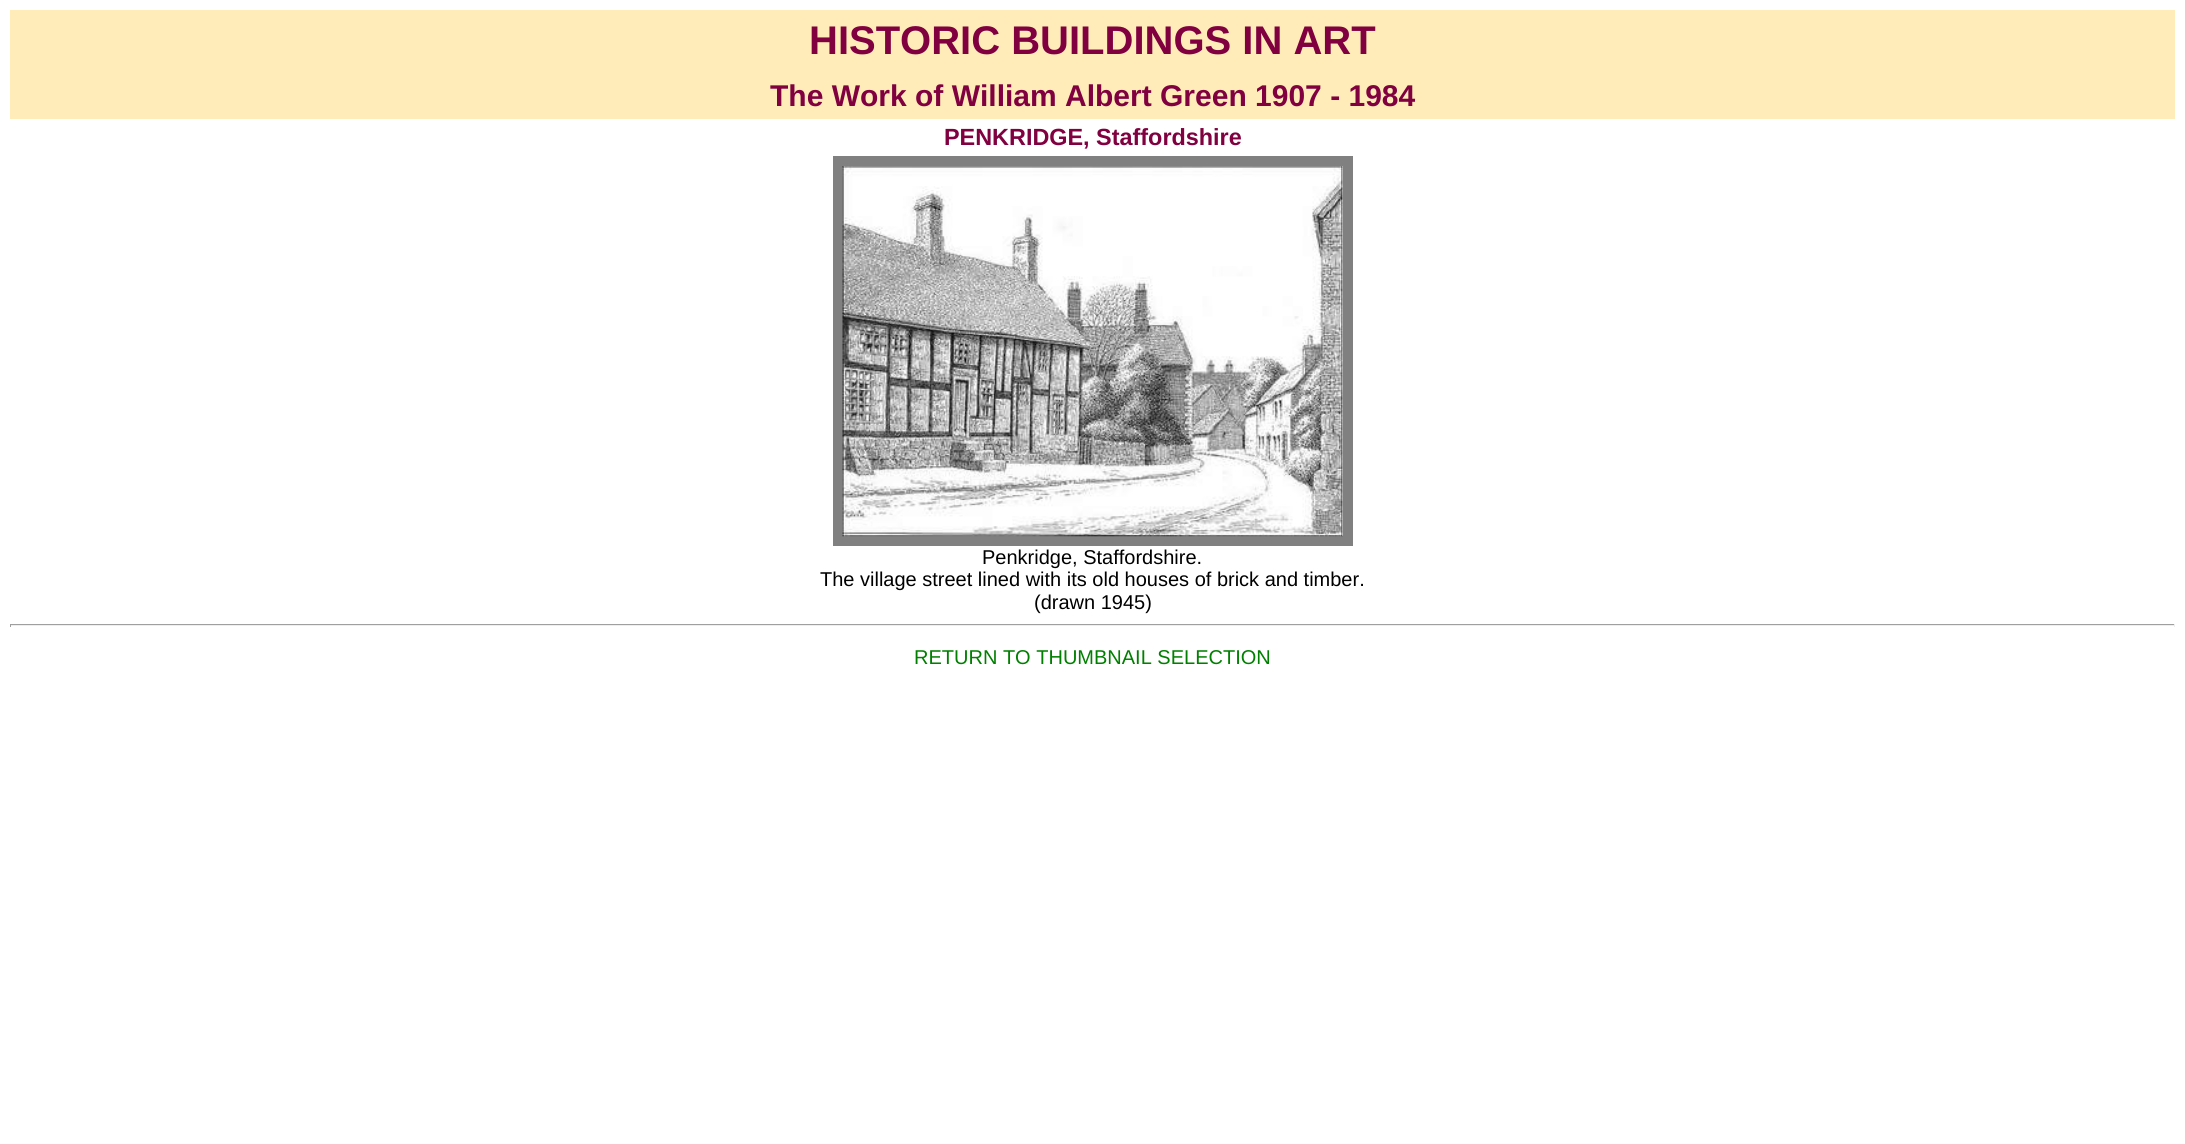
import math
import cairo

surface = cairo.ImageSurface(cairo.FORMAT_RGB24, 2185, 1144)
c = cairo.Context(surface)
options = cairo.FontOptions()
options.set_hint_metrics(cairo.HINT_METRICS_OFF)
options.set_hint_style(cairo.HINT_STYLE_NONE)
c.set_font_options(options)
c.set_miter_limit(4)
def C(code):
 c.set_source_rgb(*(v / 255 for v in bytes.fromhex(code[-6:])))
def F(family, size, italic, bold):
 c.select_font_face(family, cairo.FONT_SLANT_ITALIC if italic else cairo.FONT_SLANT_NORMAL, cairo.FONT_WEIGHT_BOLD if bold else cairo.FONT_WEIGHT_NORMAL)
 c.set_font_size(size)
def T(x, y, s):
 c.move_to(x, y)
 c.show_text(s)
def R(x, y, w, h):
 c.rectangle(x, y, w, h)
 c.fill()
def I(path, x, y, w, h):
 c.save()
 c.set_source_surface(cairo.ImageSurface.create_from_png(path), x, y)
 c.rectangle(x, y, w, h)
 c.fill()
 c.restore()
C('ffffff')
c.paint()
C('ffecb9')
R(10,10,2165,109)
F('Liberation Sans',40,0,1)
C('800040')
T(809,54,'HISTORIC BUILDINGS IN ART')
F('Liberation Sans',30,0,1)
T(770,106,'The Work of William Albert Green 1907 - 1984')
F('Liberation Sans',23.4,0,1)
T(944,145,'PENKRIDGE, Staffordshire')
C('808080')
R(833,156,10,390)
R(843,156,500,10)
R(1343,156,10,380)
R(843,536,510,10)
I('1.png',842,166,501,371)
F('Liberation Sans',20,0,0)
C('000000')
T(982,564,'Penkridge, Staffordshire.')
T(820,586,'The village street lined with its old houses of brick and timber.')
T(1034,609,'(drawn 1945)')
C('9f9f9f')
R(10,624,2165,1)
C('eeeeee')
R(2174,624,1,3)
R(10,625,2165,1)
C('9f9f9f')
R(10,624,1,3)
C('007f00')
T(914,664,'RETURN TO THUMBNAIL SELECTION')
surface.write_to_png('o.png')
